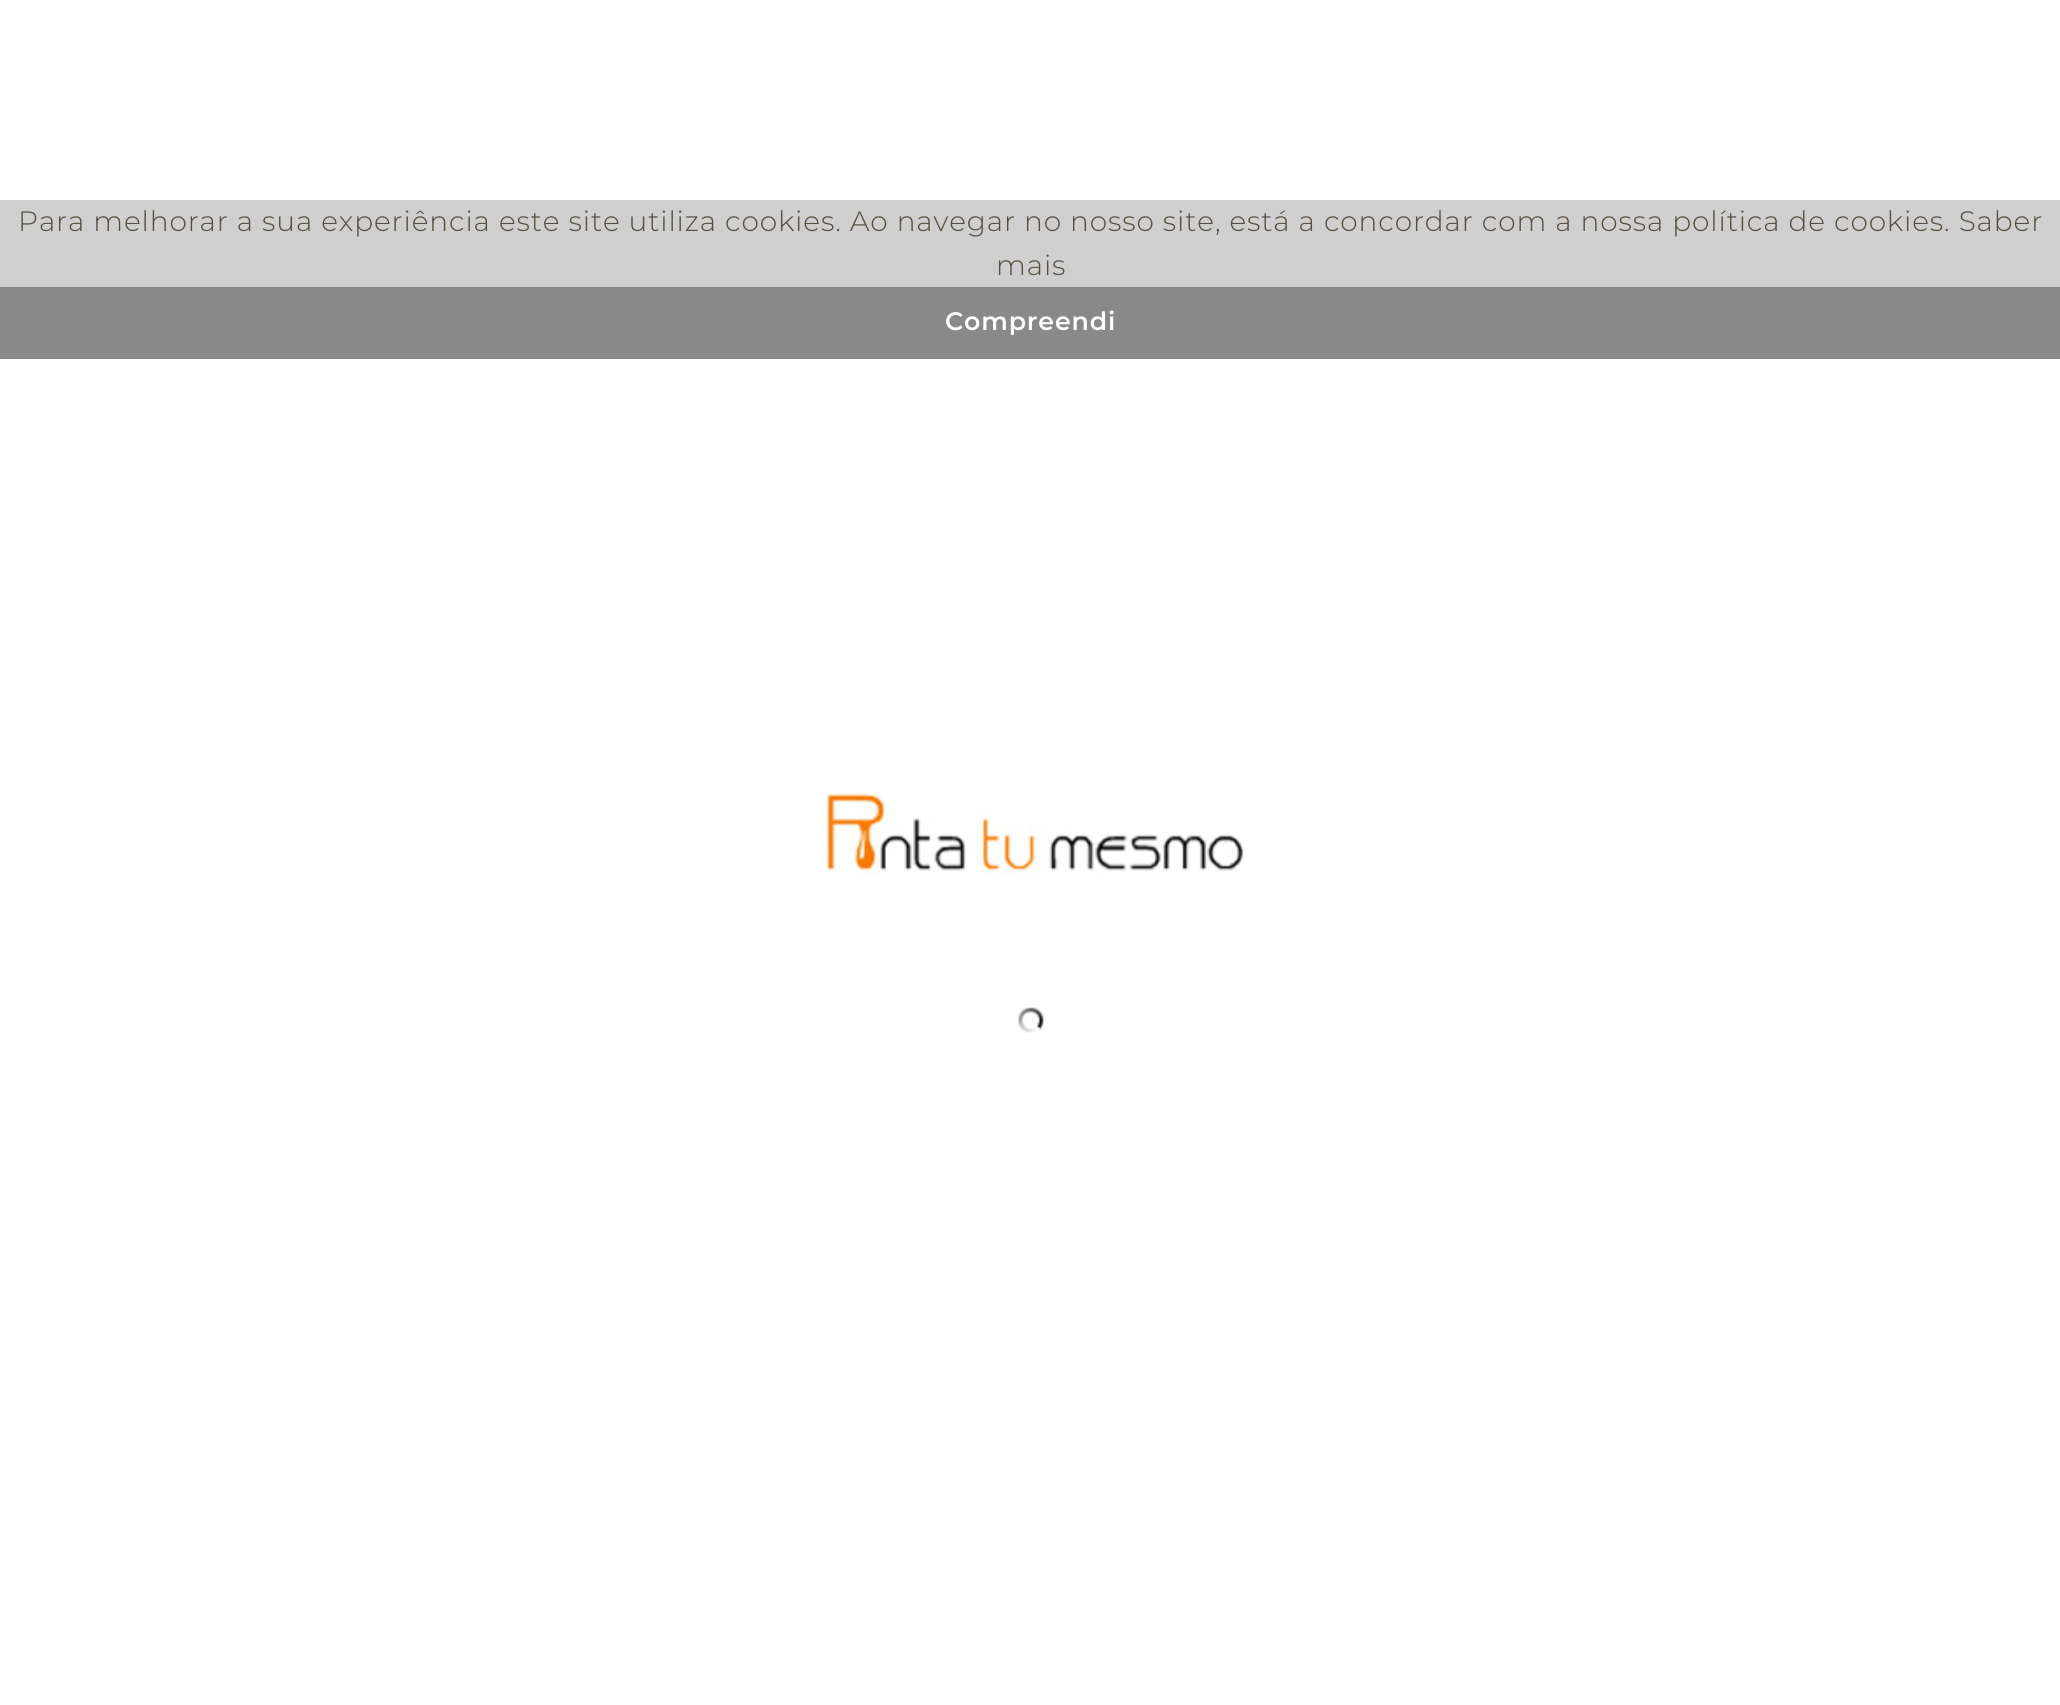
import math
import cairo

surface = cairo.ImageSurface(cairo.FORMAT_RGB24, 2060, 1705)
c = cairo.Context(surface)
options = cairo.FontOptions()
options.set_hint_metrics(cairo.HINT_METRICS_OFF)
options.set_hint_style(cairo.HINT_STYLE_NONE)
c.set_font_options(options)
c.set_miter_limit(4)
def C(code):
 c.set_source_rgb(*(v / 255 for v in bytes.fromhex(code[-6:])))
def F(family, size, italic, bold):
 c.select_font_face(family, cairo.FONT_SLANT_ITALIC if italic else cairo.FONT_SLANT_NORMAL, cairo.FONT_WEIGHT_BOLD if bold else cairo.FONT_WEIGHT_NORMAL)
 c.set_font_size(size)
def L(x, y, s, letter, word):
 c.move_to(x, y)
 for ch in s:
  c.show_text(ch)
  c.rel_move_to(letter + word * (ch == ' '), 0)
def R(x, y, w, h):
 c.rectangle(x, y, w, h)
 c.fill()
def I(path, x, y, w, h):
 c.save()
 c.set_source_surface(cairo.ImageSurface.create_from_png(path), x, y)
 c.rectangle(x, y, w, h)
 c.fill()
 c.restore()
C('ffffff')
c.paint()
C('cfcfcf')
R(0,200,2060,87)
F('Montserrat Light',28,0,0)
C('574e3f')
L(18,231,'Para melhorar a sua experiência este site utiliza cookies. Ao navegar no nosso site, está a concordar com a nossa política de cookies. Saber',.88,0)
L(996,275,'mais',.88,0)
C('898989')
R(0,287,2060,72)
F('Montserrat SemiBold',25.25,0,0)
C('ffffff')
L(945,330,'Compreendi',.88,0)
I('1.png',825,793,419,85)
I('2.png',1018,1007,26,26)
surface.write_to_png('o.png')
